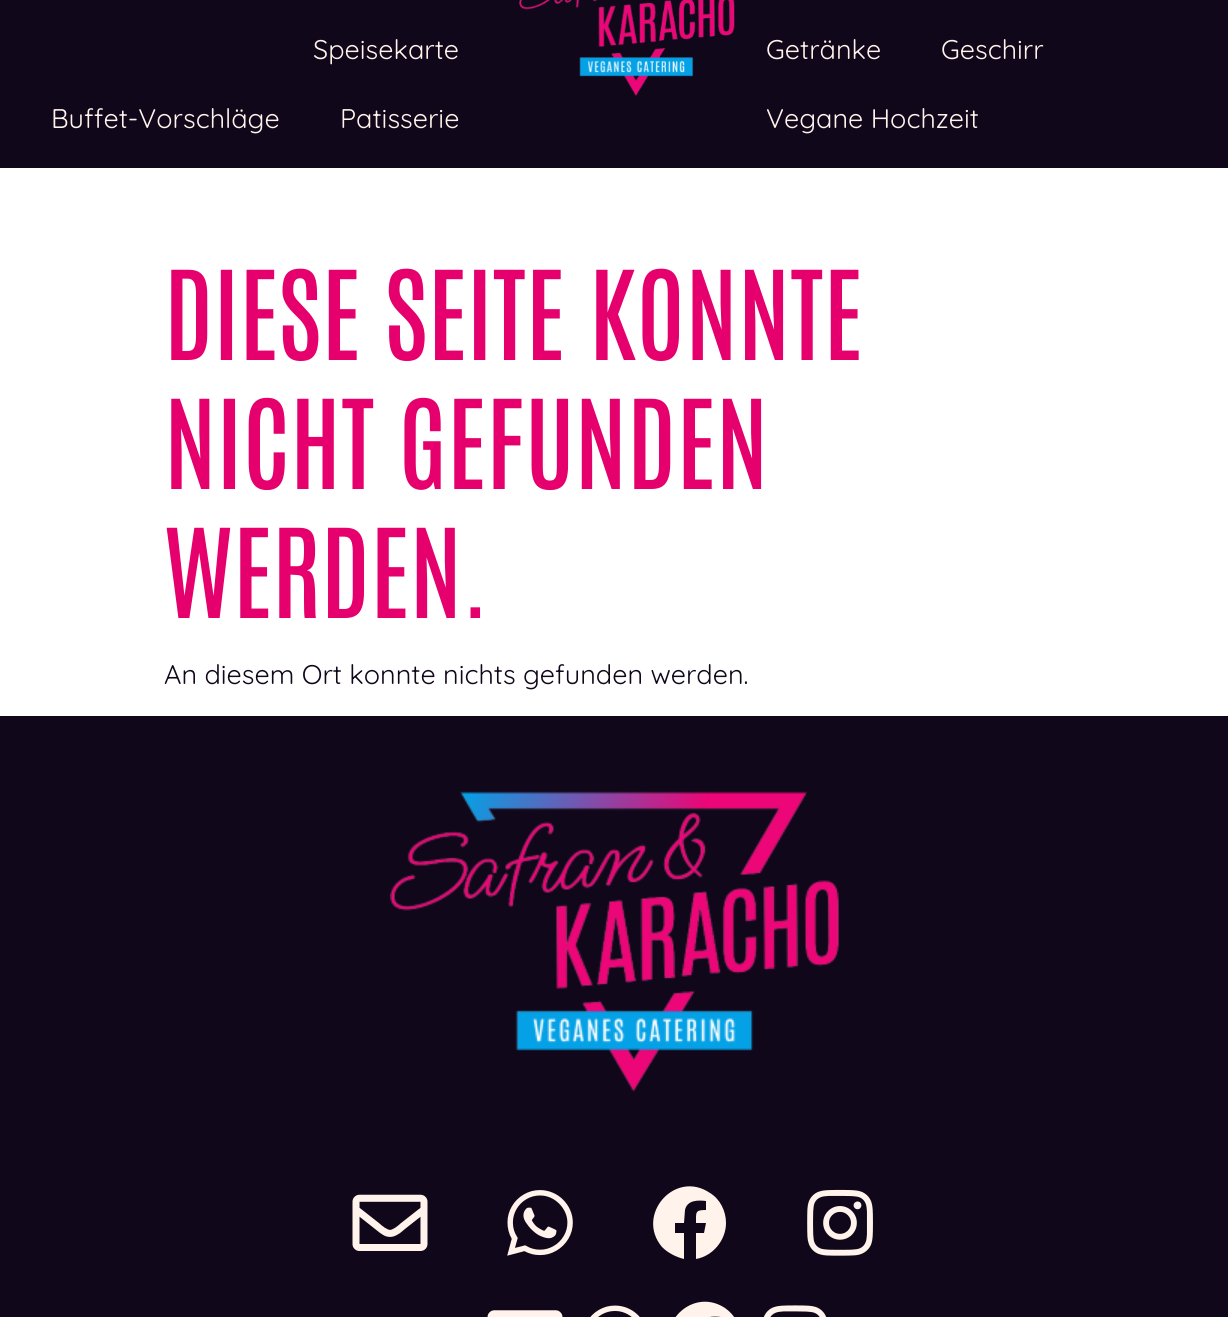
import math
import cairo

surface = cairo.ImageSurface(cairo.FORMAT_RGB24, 1228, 1317)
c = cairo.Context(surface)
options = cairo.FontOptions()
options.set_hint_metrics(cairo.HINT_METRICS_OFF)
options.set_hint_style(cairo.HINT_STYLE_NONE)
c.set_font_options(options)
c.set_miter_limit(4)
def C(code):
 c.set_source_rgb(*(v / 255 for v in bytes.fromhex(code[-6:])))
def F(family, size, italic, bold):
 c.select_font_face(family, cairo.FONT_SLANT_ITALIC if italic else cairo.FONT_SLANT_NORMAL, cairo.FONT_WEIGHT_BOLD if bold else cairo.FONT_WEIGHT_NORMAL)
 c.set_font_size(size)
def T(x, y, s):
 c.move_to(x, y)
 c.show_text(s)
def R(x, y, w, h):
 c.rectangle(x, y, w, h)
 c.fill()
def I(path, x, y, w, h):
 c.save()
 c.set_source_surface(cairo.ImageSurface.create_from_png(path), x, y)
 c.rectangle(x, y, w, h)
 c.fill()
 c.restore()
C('ffffff')
c.paint()
C('11071a')
R(0,0,1228,168)
F('Quicksand Light',27,0,0)
C('fff3eb')
T(313,59,'Speisekarte')
T(51,128,'Buffet-Vorschläge')
T(340,128,'Patisserie')
I('1.png',519,0,216,96)
T(766,59,'Getränke')
T(941,59,'Geschirr')
T(766,128,'Vegane Hochzeit')
F('Antonio Medium',105,0,0)
C('e5006d')
T(164,360,'DIESE SEITE KONNTE')
T(164,489,'NICHT GEFUNDEN')
T(164,618,'WERDEN.')
F('Quicksand Light',27,0,0)
C('11071a')
T(164,684,'An diesem Ort konnte nichts gefunden werden.')
R(0,716,1228,601)
I('2.png',390,791,449,301)
I('3.png',352,1194,76,57)
I('4.png',507,1190,66,66)
C('fff3eb')
c.new_path()
c.move_to(726,1223)
c.curve_to(726,1240,713,1256,696,1259)
c.line_to(696,1233)
c.line_to(704,1233)
c.line_to(706,1223)
c.line_to(696,1223)
c.curve_to(696,1212,695,1210,706,1210)
c.line_to(706,1201)
c.curve_to(698,1200,687,1200,685,1210)
c.line_to(684,1223)
c.line_to(675,1223)
c.line_to(675,1233)
c.line_to(684,1233)
c.line_to(684,1259)
c.curve_to(676,1257,668,1253,662,1247)
c.curve_to(635,1215,675,1169,710,1193)
c.curve_to(720,1199,726,1211,726,1223)
c.close_path()
c.fill()
I('5.png',807,1189,66,67)
I('6.png',487,1310,76,7)
I('7.png',590,1305,50,12)
c.new_path()
c.move_to(741,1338)
c.curve_to(741,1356,728,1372,711,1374)
c.line_to(711,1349)
c.line_to(719,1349)
c.line_to(721,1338)
c.line_to(711,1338)
c.curve_to(711,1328,710,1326,721,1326)
c.line_to(721,1317)
c.curve_to(713,1316,702,1316,700,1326)
c.line_to(699,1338)
c.line_to(690,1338)
c.line_to(690,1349)
c.line_to(699,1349)
c.line_to(699,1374)
c.curve_to(691,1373,683,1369,677,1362)
c.curve_to(650,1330,690,1285,725,1308)
c.curve_to(735,1315,741,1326,741,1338)
c.close_path()
c.fill()
I('8.png',763,1305,64,12)
surface.write_to_png('o.png')
